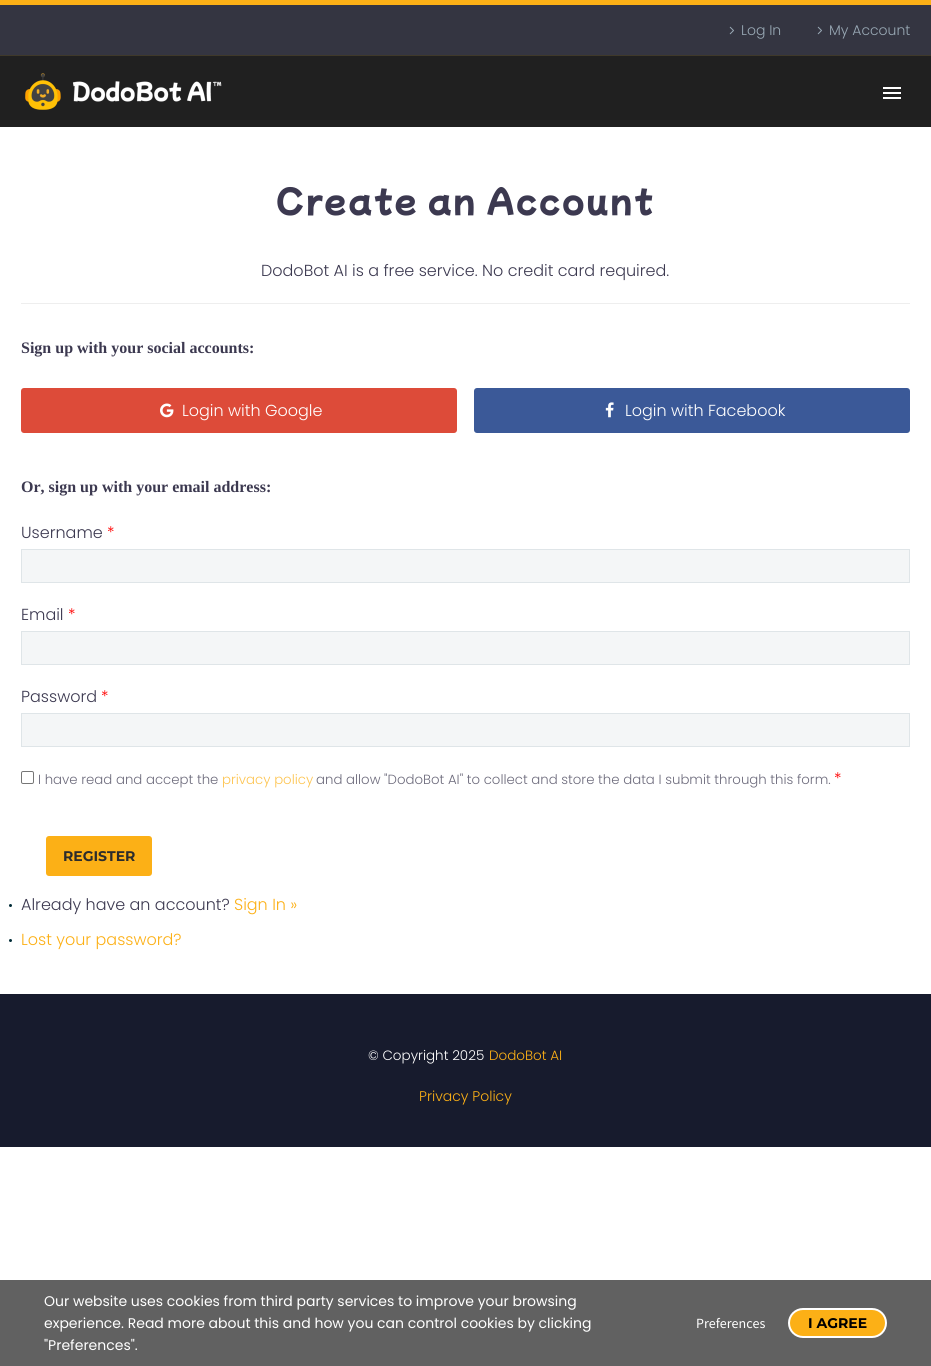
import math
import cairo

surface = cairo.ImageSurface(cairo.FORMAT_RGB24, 931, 1366)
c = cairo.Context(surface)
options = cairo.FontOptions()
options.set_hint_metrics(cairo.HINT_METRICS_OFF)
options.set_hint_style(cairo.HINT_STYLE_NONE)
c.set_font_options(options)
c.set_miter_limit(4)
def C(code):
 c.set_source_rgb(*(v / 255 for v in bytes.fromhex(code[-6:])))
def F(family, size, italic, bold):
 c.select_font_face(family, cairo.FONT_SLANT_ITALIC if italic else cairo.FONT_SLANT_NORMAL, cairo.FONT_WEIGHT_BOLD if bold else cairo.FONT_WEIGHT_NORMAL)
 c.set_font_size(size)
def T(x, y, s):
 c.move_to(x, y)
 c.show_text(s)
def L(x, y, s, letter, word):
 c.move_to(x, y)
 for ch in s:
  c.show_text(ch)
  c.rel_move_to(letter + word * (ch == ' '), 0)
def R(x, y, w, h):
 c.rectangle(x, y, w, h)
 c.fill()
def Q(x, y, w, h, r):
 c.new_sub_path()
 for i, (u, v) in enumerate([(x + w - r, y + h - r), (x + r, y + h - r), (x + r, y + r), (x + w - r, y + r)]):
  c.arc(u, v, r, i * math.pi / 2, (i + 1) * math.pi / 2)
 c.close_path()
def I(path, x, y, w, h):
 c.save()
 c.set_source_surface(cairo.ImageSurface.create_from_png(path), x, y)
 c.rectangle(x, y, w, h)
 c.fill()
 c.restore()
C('ffffff')
c.paint()
C('343541')
R(0,5,931,50)
C('fcb016')
R(0,0,931,5)
C('3f392a')
R(0,55,931,1)
I('1.png',729,26,5,9)
F('Poppins Light',14,0,0)
C('99a9b5')
T(741,35,'Log In')
I('1.png',817,26,5,9)
T(829,35,'My Account')
C('202020')
R(0,56,931,71)
I('2.png',25,73,197,37)
C('ffffff')
R(883,87,18,2)
R(883,92,18,2)
R(883,97,18,2)
F('Mochiy Pop One',32,0,0)
C('3c3950')
L(276,213,'Create an Account',2,0)
F('Poppins Light',16,0,0)
T(261,276,'DodoBot AI is a free service. No credit card required.')
C('eeeeee')
R(21,303,889,1)
F('Liberation Serif',16,0,1)
C('3c3950')
T(21,353,'Sign up with your social accounts:')
C('dd4b39')
Q(21,388,436,45,3)
c.fill()
I('3.png',160,403,14,15)
F('Poppins Light',16,0,0)
C('ffffff')
T(182,416,'Login with Google')
C('3b5998')
Q(474,388,436,45,3)
c.fill()
I('4.png',605,402,9,16)
C('ffffff')
T(625,416,'Login with Facebook')
F('Liberation Serif',16,0,1)
C('3c3950')
T(21,492,'Or, sign up with your email address:')
F('Poppins Light',16,0,0)
T(21,538,'Username')
C('ff0000')
T(107,538,'*')
C('f4f6f7')
c.rectangle(21.5,549.5,888,33)
c.fill_preserve()
C('dfe5e8')
c.set_line_width(1)
c.stroke()
C('3c3950')
T(21,620,'Email')
C('ff0000')
T(68,620,'*')
C('f4f6f7')
c.rectangle(21.5,631.5,888,33)
c.fill_preserve()
C('dfe5e8')
c.stroke()
C('3c3950')
T(21,702,'Password')
C('ff0000')
T(101,702,'*')
C('f4f6f7')
c.rectangle(21.5,713.5,888,33)
c.fill_preserve()
C('dfe5e8')
c.stroke()
Q(21.5,771.5,12,12,1.5)
C('767676')
c.stroke()
F('Poppins Light',13.3,0,0)
C('6d6b7c')
T(38,784,'I have read and accept the')
C('fdc450')
T(222,784,'privacy policy')
C('6d6b7c')
T(316,784,'and allow "DodoBot AI" to collect and store the data I submit through this form.')
F('Poppins Light',16,0,0)
C('ff0000')
T(834,784,'*')
C('fcb016')
Q(46,836,106,40,3)
c.fill()
F('Montserrat',14,0,1)
C('2c2c2c')
T(63,861,'REGISTER')
C('002b36')
c.new_path()
c.arc(10.5,905.5,1.5,0,2 * math.pi)
c.fill()
F('Poppins Light',16,0,0)
C('3c3950')
T(21,910,'Already have an account?')
C('fcb016')
T(234,910,'Sign In »')
C('002b36')
c.new_path()
c.arc(10.5,940.5,1.5,0,2 * math.pi)
c.fill()
C('fcb016')
T(21,945,'Lost your password?')
C('171b2d')
R(0,994,931,153)
F('Poppins Light',13.5,0,0)
C('ffffff')
T(368,1060,'© Copyright 2025')
C('fcb016')
T(489,1060,'DodoBot AI')
F('Poppins Light',14,0,0)
T(419,1101,'Privacy Policy')
C('616161')
R(0,1280,931,86)
F('Poppins',14,0,0)
C('ffffff')
T(44,1306,'Our website uses cookies from third party services to improve your browsing')
T(44,1328,'experience. Read more about this and how you can control cookies by clicking')
T(44,1350,'"Preferences".')
F('Source Sans Pro',14,0,0)
T(696,1328,'Preferences')
C('fcb016')
Q(789,1309,97,28,14)
c.fill_preserve()
C('ffffff')
c.set_line_width(2)
c.stroke()
F('Montserrat',14,0,1)
C('000000')
T(808,1328,'I AGREE')
surface.write_to_png('o.png')
